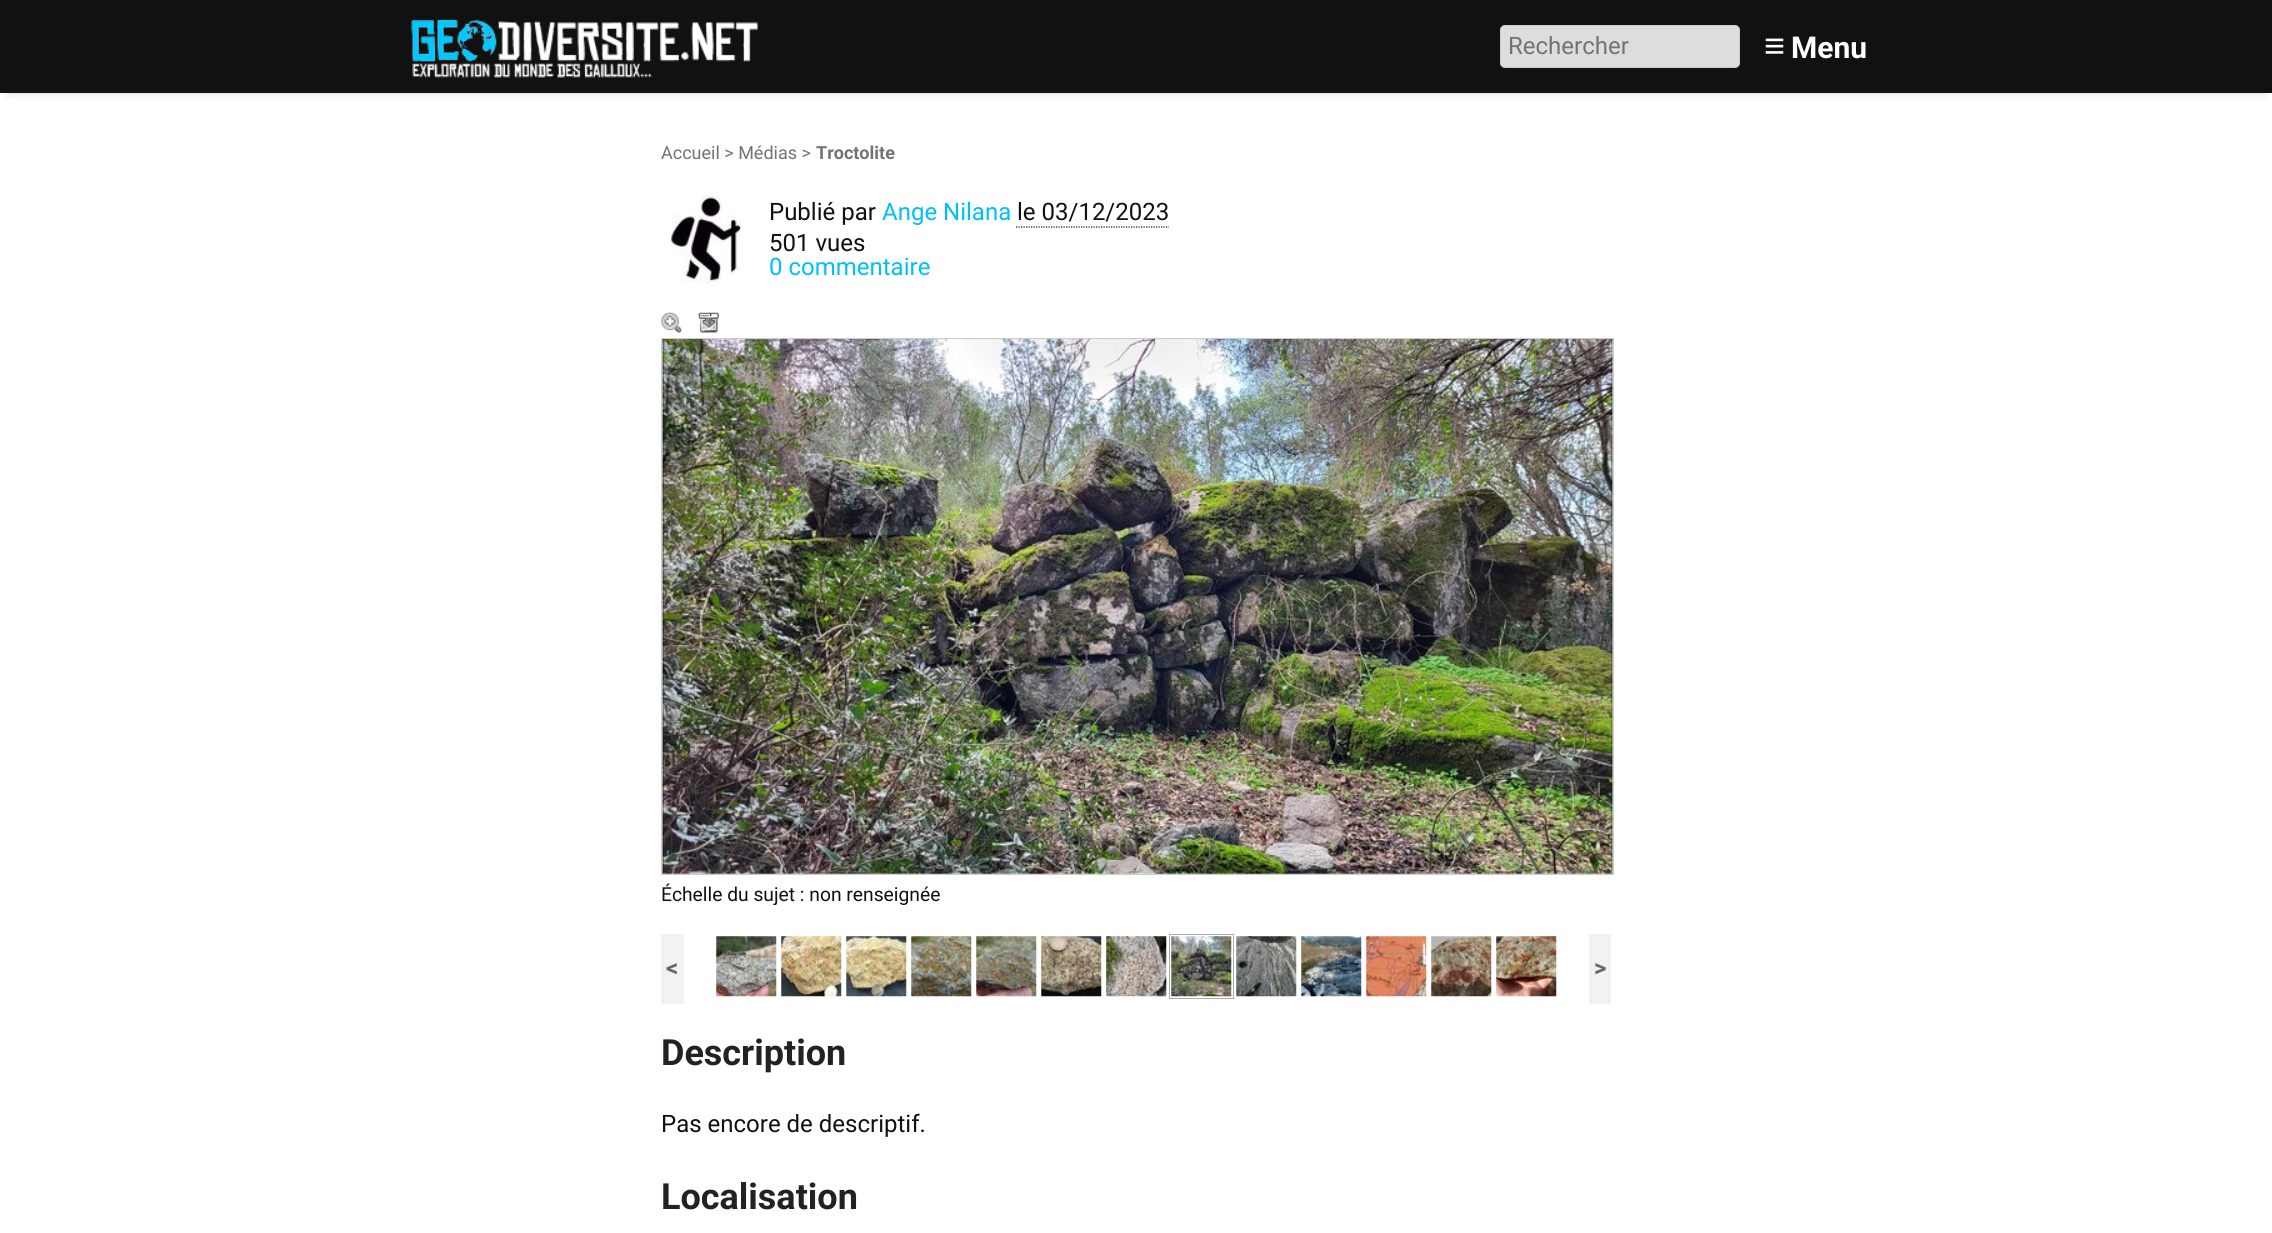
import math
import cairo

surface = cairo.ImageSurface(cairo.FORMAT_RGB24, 2272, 1233)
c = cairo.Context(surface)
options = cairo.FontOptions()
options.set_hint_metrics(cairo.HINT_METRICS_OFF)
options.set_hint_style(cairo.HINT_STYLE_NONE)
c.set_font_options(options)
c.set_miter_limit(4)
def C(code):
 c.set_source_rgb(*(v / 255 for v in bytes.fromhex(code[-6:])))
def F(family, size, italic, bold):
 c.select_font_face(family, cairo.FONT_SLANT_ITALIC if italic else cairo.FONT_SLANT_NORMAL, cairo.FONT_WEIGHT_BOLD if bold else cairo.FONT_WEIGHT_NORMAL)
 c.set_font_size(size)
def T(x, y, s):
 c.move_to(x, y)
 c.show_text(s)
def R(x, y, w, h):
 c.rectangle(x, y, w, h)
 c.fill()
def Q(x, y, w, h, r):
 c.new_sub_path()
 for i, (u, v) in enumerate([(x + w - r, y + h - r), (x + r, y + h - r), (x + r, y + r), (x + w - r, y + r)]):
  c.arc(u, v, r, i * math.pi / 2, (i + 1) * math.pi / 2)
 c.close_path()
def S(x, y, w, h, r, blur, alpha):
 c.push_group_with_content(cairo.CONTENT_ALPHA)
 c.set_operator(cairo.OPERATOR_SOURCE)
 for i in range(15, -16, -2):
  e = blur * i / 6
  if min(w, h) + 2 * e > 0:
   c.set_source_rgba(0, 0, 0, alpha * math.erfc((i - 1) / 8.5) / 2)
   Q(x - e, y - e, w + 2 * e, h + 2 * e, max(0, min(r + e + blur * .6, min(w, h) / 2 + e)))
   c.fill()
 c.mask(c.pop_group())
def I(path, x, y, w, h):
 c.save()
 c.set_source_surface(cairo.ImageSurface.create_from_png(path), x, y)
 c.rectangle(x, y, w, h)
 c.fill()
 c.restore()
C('ffffff')
c.paint()
C('000000')
S(8,15,2257,78,0,4,.2)
C('111111')
R(0,0,2272,93)
I('1.png',411,19,347,59)
C('dddddd')
Q(1500.5,25.5,239,42,4.5)
c.fill_preserve()
C('cccccc')
c.set_line_width(1)
c.stroke()
F('Roboto',24,0,0)
C('737373')
T(1508,54,'Rechercher')
F('Liberation Sans',36,0,1)
C('ffffff')
T(1764,58,'≡')
F('Roboto',30,0,1)
T(1791,58,'Menu')
F('Roboto',18,0,0)
C('737373')
T(661,159,'Accueil > Médias >')
F('Roboto',18,0,1)
T(816,159,'Troctolite')
I('2.png',671,195,71,88)
F('Roboto',24,0,0)
C('111111')
T(769,220,'Publié par')
C('00c0f8')
T(882,220,'Ange Nilana')
C('111111')
T(1017,220,'le 03/12/2023')
c.new_path()
c.move_to(1016,227)
c.line_to(1169,227)
c.set_line_width(1.2)
c.set_dash([1.25,1.25])
c.stroke()
T(769,251,'501 vues')
C('00c0f8')
T(769,275,'0 commentaire')
I('3.png',661,312,21,21)
I('4.png',698,312,21,21)
I('5.png',662,339,951,535)
c.rectangle(661.5,338.5,952,536)
C('cccccc')
c.set_line_width(1)
c.set_dash([])
c.stroke()
F('Roboto',19.25,0,0)
C('111111')
T(661,901,'Échelle du sujet : non renseignée')
I('6.png',716,936,61,61)
I('7.png',781,936,61,61)
I('8.png',846,936,61,61)
I('9.png',911,936,61,61)
I('10.png',976,936,61,61)
I('11.png',1041,936,61,61)
I('12.png',1106,936,61,61)
c.rectangle(1169.5,934.5,64,64)
C('aaaaaa')
c.stroke()
C('f2f2f2')
R(661,934,23,70)
F('Roboto',24,0,1)
C('666666')
T(666,976,'<')
I('13.png',1171,936,61,61)
I('14.png',1236,936,61,61)
I('15.png',1301,936,61,61)
I('16.png',1366,936,61,61)
I('17.png',1431,936,61,61)
I('18.png',1496,936,61,61)
C('f2f2f2')
R(1589,934,22,70)
C('666666')
T(1594,976,'>')
F('Roboto',36,0,1)
C('222222')
T(661,1065,'Description')
F('Roboto',24,0,0)
C('111111')
T(661,1132,'Pas encore de descriptif.')
F('Roboto',36,0,1)
C('222222')
T(661,1209,'Localisation')
surface.write_to_png('o.png')
